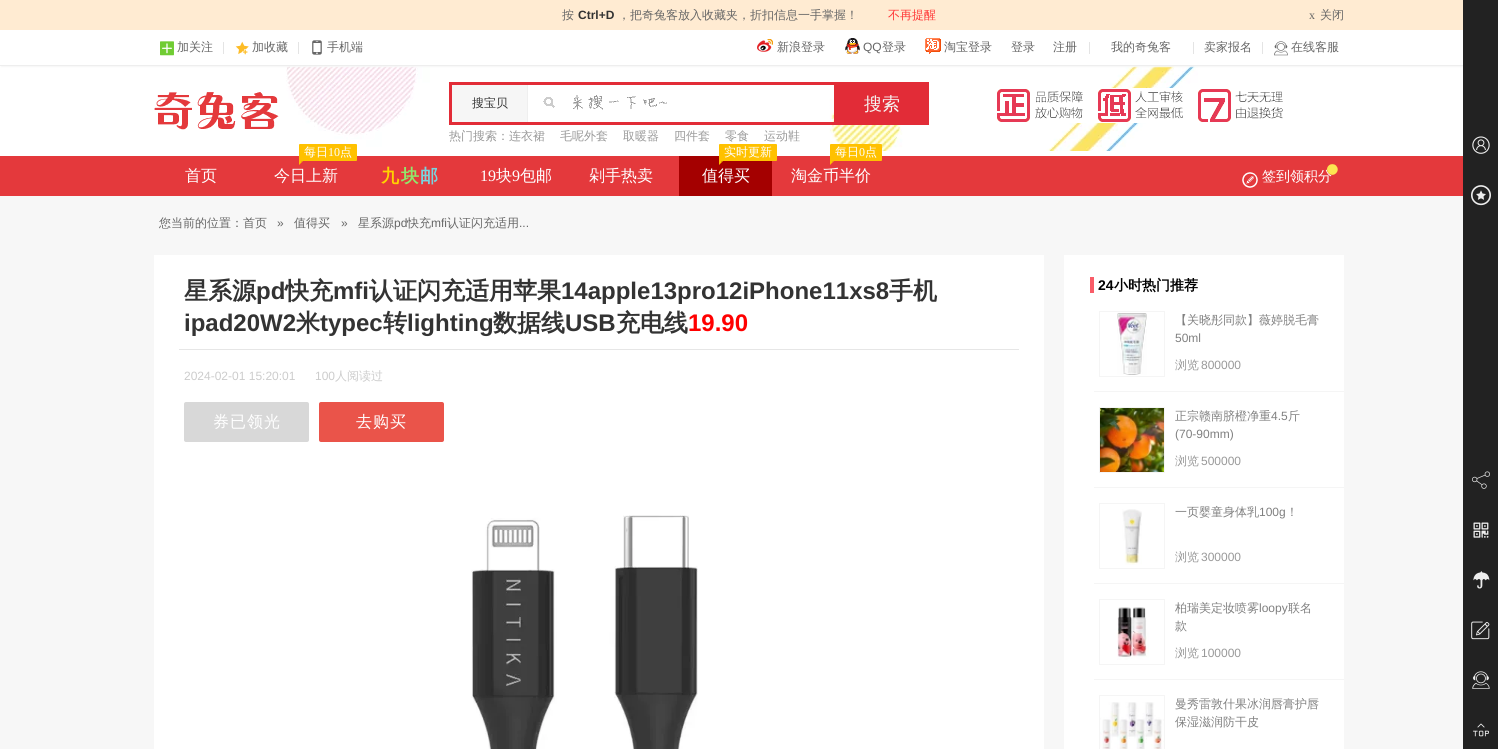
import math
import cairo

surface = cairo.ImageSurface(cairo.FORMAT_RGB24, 1498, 749)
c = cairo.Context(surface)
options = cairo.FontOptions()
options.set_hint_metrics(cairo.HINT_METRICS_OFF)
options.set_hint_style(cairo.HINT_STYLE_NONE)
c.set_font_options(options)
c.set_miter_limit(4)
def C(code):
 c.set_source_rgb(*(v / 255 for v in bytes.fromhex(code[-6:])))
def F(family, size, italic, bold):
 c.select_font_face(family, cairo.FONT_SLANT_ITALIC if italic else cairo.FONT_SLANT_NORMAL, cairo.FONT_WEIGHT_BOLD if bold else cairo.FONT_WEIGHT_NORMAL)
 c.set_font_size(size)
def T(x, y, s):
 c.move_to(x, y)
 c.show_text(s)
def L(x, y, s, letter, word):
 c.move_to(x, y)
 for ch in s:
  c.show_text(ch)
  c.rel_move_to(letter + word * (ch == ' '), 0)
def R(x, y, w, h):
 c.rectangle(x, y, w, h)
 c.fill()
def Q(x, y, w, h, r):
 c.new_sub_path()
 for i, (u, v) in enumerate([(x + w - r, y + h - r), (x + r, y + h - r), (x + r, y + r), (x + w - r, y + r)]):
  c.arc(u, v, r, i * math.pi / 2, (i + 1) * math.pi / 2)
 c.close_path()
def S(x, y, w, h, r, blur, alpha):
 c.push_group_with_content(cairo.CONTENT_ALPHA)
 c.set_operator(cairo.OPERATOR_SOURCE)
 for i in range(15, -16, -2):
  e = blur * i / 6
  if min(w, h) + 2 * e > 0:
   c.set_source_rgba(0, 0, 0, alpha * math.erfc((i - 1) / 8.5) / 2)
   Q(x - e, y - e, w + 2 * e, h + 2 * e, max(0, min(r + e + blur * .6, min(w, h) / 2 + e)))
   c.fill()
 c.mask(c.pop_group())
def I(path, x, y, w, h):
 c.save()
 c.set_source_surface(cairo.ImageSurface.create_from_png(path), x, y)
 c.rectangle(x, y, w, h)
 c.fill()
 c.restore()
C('ffffff')
c.paint()
C('ffebd2')
R(0,0,1463,30)
F('WenQuanYi Zen Hei Medium',12,0,0)
C('666666')
T(562,19,'按')
F('Liberation Sans',12,0,1)
C('333333')
T(578,19,'Ctrl+D')
F('WenQuanYi Zen Hei Medium',12,0,0)
C('666666')
T(618,19,'，把奇兔客放入收藏夹，折扣信息一手掌握！')
C('ff3838')
T(888,19,'不再提醒')
F('Liberation Serif',12,0,0)
C('666666')
T(1309,19,'x')
F('WenQuanYi Zen Hei Medium',12,0,0)
T(1320,19,'关闭')
I('8.png',286,66,912,85)
c.save()
c.rectangle(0,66,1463,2)
c.clip()
C('f7f7f7')
S(1,31,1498,36,0,.5,1)
c.restore()
C('eeeeee')
R(0,65,1463,1)
I('1.png',160,41,14,15)
C('666666')
T(177,51,'加关注')
C('e4e4e4')
R(223,42,1,12)
I('2.png',235,41,14,14)
C('666666')
T(252,51,'加收藏')
C('e4e4e4')
R(298,42,1,12)
I('3.png',312,40,10,15)
C('666666')
T(327,51,'手机端')
I('4.png',757,39,16,13)
T(777,51,'新浪登录')
I('5.png',845,38,15,16)
F('Liberation Sans',12,0,0)
T(863,51,'QQ')
F('WenQuanYi Zen Hei Medium',12,0,0)
T(882,51,'登录')
I('6.png',925,38,16,16)
T(944,51,'淘宝登录')
T(1011,51,'登录')
T(1053,51,'注册')
C('e4e4e4')
R(1089,42,1,12)
C('666666')
T(1111,51,'我的奇兔客')
C('e4e4e4')
R(1193,42,1,12)
C('666666')
T(1204,51,'卖家报名')
C('e4e4e4')
R(1262,42,1,12)
I('7.png',1274,41,14,15)
C('666666')
T(1291,51,'在线客服')
I('9.png',154,92,125,38)
C('e22c37')
R(449,82,385,3)
R(449,122,385,3)
R(449,82,3,43)
C('f6f6f6')
R(452,85,75,37)
C('efefef')
R(527,85,1,37)
C('333333')
T(472,107,'搜宝贝')
I('10.png',543,95,124,15)
C('e22c37')
R(834,82,95,43)
F('WenQuanYi Zen Hei Medium',18,0,0)
C('f5f5f2')
T(864,110,'搜索')
F('WenQuanYi Zen Hei Medium',12,0,0)
C('999999')
T(449,140,'热门搜索：连衣裙')
T(560,140,'毛呢外套')
T(623,140,'取暖器')
T(674,140,'四件套')
T(725,140,'零食')
T(764,140,'运动鞋')
I('11.png',997,88,286,35)
C('e4393c')
R(0,156,1463,40)
F('WenQuanYi Zen Hei Medium',16,0,0)
C('ffffff')
T(185,181,'首页')
C('ffc100')
Q(299,144,58,17,1)
c.fill()
F('WenQuanYi Zen Hei Medium',12,0,0)
C('ffffff')
T(304,156,'每日')
F('Liberation Serif',12,0,0)
T(328,156,'10')
F('WenQuanYi Zen Hei Medium',12,0,0)
T(340,156,'点')
C('ffc100')
c.new_path()
c.move_to(299,159)
c.line_to(305,159)
c.line_to(302,162)
c.close_path()
c.fill()
c.new_path()
c.move_to(299,165)
c.line_to(299,159)
c.line_to(302,162)
c.close_path()
c.fill()
F('WenQuanYi Zen Hei Medium',16,0,0)
C('ffffff')
T(274,181,'今日上新')
F('WenQuanYi Zen Hei',18,0,1)
C('ffd200')
L(381,182,'九',2,0)
C('8fe86b')
L(401,182,'块',2,0)
C('79d3de')
L(420,182,'邮',2,0)
F('Liberation Serif',16,0,0)
C('ffffff')
T(480,181,'19')
F('WenQuanYi Zen Hei Medium',16,0,0)
T(496,181,'块')
F('Liberation Serif',16,0,0)
T(512,181,'9')
F('WenQuanYi Zen Hei Medium',16,0,0)
T(520,181,'包邮')
T(589,181,'剁手热卖')
C('a40000')
R(679,156,93,40)
C('ffc100')
Q(719,144,58,17,1)
c.fill()
F('WenQuanYi Zen Hei Medium',12,0,0)
C('ffffff')
T(724,156,'实时更新')
C('ffc100')
c.new_path()
c.move_to(719,159)
c.line_to(725,159)
c.line_to(722,162)
c.close_path()
c.fill()
c.new_path()
c.move_to(719,165)
c.line_to(719,159)
c.line_to(722,162)
c.close_path()
c.fill()
F('WenQuanYi Zen Hei Medium',16,0,0)
C('ffffff')
T(702,181,'值得买')
C('ffc100')
Q(830,144,52,17,1)
c.fill()
F('WenQuanYi Zen Hei Medium',12,0,0)
C('ffffff')
T(835,156,'每日')
F('Liberation Serif',12,0,0)
T(859,156,'0')
F('WenQuanYi Zen Hei Medium',12,0,0)
T(865,156,'点')
C('ffc100')
c.new_path()
c.move_to(830,159)
c.line_to(836,159)
c.line_to(833,162)
c.close_path()
c.fill()
c.new_path()
c.move_to(830,165)
c.line_to(830,159)
c.line_to(833,162)
c.close_path()
c.fill()
F('WenQuanYi Zen Hei Medium',16,0,0)
C('ffffff')
T(791,181,'淘金币半价')
I('12.png',1242,172,16,16)
F('WenQuanYi Zen Hei Medium',14,0,0)
T(1262,181,'签到领积分')
I('13.png',1327,164,11,11)
C('f7f7f7')
R(0,196,1463,553)
F('WenQuanYi Zen Hei Medium',12,0,0)
C('666666')
T(159,227,'您当前的位置：首页')
F('Liberation Sans',12,0,0)
T(277,227,'»')
F('WenQuanYi Zen Hei Medium',12,0,0)
T(294,227,'值得买')
F('Liberation Sans',12,0,0)
T(341,227,'»')
F('WenQuanYi Zen Hei Medium',12,0,0)
T(358,227,'星系源')
F('Liberation Sans',12,0,0)
T(394,227,'pd')
F('WenQuanYi Zen Hei Medium',12,0,0)
T(407,227,'快充')
F('Liberation Sans',12,0,0)
T(431,227,'mfi')
F('WenQuanYi Zen Hei Medium',12,0,0)
T(447,227,'认证闪充适用')
F('Liberation Sans',12,0,0)
T(519,227,'...')
C('ffffff')
R(154,255,890,494)
C('e6e6e6')
R(179,349,840,1)
F('WenQuanYi Zen Hei',24,0,1)
C('333333')
T(184,299,'星系源')
F('Liberation Sans',24,0,1)
T(256,299,'pd')
F('WenQuanYi Zen Hei',24,0,1)
T(285,299,'快充')
F('Liberation Sans',24,0,1)
T(333,299,'mfi')
F('WenQuanYi Zen Hei',24,0,1)
T(369,299,'认证闪充适用苹果')
F('Liberation Sans',24,0,1)
T(561,299,'14apple13pro12iPhone11xs8')
F('WenQuanYi Zen Hei',24,0,1)
T(889,299,'手机')
F('Liberation Sans',24,0,1)
T(184,331,'ipad20W2')
F('WenQuanYi Zen Hei',24,0,1)
T(296,331,'米')
F('Liberation Sans',24,0,1)
T(320,331,'typec')
F('WenQuanYi Zen Hei',24,0,1)
T(383,331,'转')
F('Liberation Sans',24,0,1)
T(407,331,'lighting')
F('WenQuanYi Zen Hei',24,0,1)
T(493,331,'数据线')
F('Liberation Sans',24,0,1)
T(565,331,'USB')
F('WenQuanYi Zen Hei',24,0,1)
T(616,331,'充电线')
F('Liberation Sans',24,0,1)
C('ff0000')
T(688,331,'19.90')
F('Liberation Sans',12,0,0)
C('cccccc')
T(184,380,'2024-02-01 15:20:01')
T(315,380,'100')
F('WenQuanYi Zen Hei Medium',12,0,0)
T(335,380,'人阅读过')
C('d8d8d8')
Q(184,402,125,40,2)
c.fill()
F('WenQuanYi Zen Hei Medium',16,0,0)
C('ffffff')
L(213,427,'券已领光',1,0)
C('ea544a')
Q(319,402,125,40,2)
c.fill()
C('ffffff')
L(356,427,'去购买',1,0)
I('14.png',471,515,227,234)
R(1064,255,280,494)
C('f95c68')
R(1090,277,4,16)
F('Liberation Sans',14,0,1)
C('000000')
T(1098,290,'24')
F('WenQuanYi Zen Hei',14,0,1)
T(1114,290,'小时热门推荐')
C('f5f5f5')
R(1094,391,250,1)
c.rectangle(1099.5,311.5,65,65)
c.set_line_width(1)
c.stroke()
I('15.png',1117,313,30,62)
F('WenQuanYi Zen Hei Medium',12,0,0)
C('808080')
T(1175,324,'【关晓彤同款】薇婷脱毛膏')
F('Liberation Sans',12,0,0)
T(1175,342,'50ml')
F('WenQuanYi Zen Hei Medium',12,0,0)
C('999999')
T(1175,369,'浏览')
F('Liberation Sans',12,0,0)
T(1201,369,'800000')
C('f5f5f5')
R(1094,487,250,1)
c.rectangle(1099.5,407.5,65,65)
c.stroke()
I('16.png',1100,408,64,64)
F('WenQuanYi Zen Hei Medium',12,0,0)
C('808080')
T(1175,420,'正宗赣南脐橙净重')
F('Liberation Sans',12,0,0)
T(1271,420,'4.5')
F('WenQuanYi Zen Hei Medium',12,0,0)
T(1288,420,'斤')
F('Liberation Sans',12,0,0)
T(1175,438,'(70-90mm)')
F('WenQuanYi Zen Hei Medium',12,0,0)
C('999999')
T(1175,465,'浏览')
F('Liberation Sans',12,0,0)
T(1201,465,'500000')
C('f5f5f5')
R(1094,583,250,1)
c.rectangle(1099.5,503.5,65,65)
c.stroke()
I('17.png',1122,509,20,56)
F('WenQuanYi Zen Hei Medium',12,0,0)
C('808080')
T(1175,516,'一页婴童身体乳')
F('Liberation Sans',12,0,0)
T(1259,516,'100g')
F('WenQuanYi Zen Hei Medium',12,0,0)
T(1286,516,'！')
C('999999')
T(1175,561,'浏览')
F('Liberation Sans',12,0,0)
T(1201,561,'300000')
C('f5f5f5')
R(1094,679,250,1)
c.rectangle(1099.5,599.5,65,65)
c.stroke()
I('18.png',1117,607,32,53)
F('WenQuanYi Zen Hei Medium',12,0,0)
C('808080')
T(1175,612,'柏瑞美定妆喷雾')
F('Liberation Sans',12,0,0)
T(1259,612,'loopy')
F('WenQuanYi Zen Hei Medium',12,0,0)
T(1288,612,'联名')
T(1175,630,'款')
C('999999')
T(1175,657,'浏览')
F('Liberation Sans',12,0,0)
T(1201,657,'100000')
c.rectangle(1099.5,695.5,65,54)
C('f5f5f5')
c.stroke()
I('19.png',1100,702,64,47)
F('WenQuanYi Zen Hei Medium',12,0,0)
C('808080')
T(1175,708,'曼秀雷敦什果冰润唇膏护唇')
T(1175,726,'保湿滋润防干皮')
C('222222')
R(1463,0,35,749)
I('20.png',1472,136,18,18)
I('21.png',1471,185,20,21)
I('22.png',1472,471,18,18)
I('23.png',1473,522,16,16)
I('24.png',1473,571,17,18)
I('25.png',1471,621,19,19)
I('26.png',1472,671,18,18)
I('27.png',1473,723,16,14)
surface.write_to_png('o.png')
